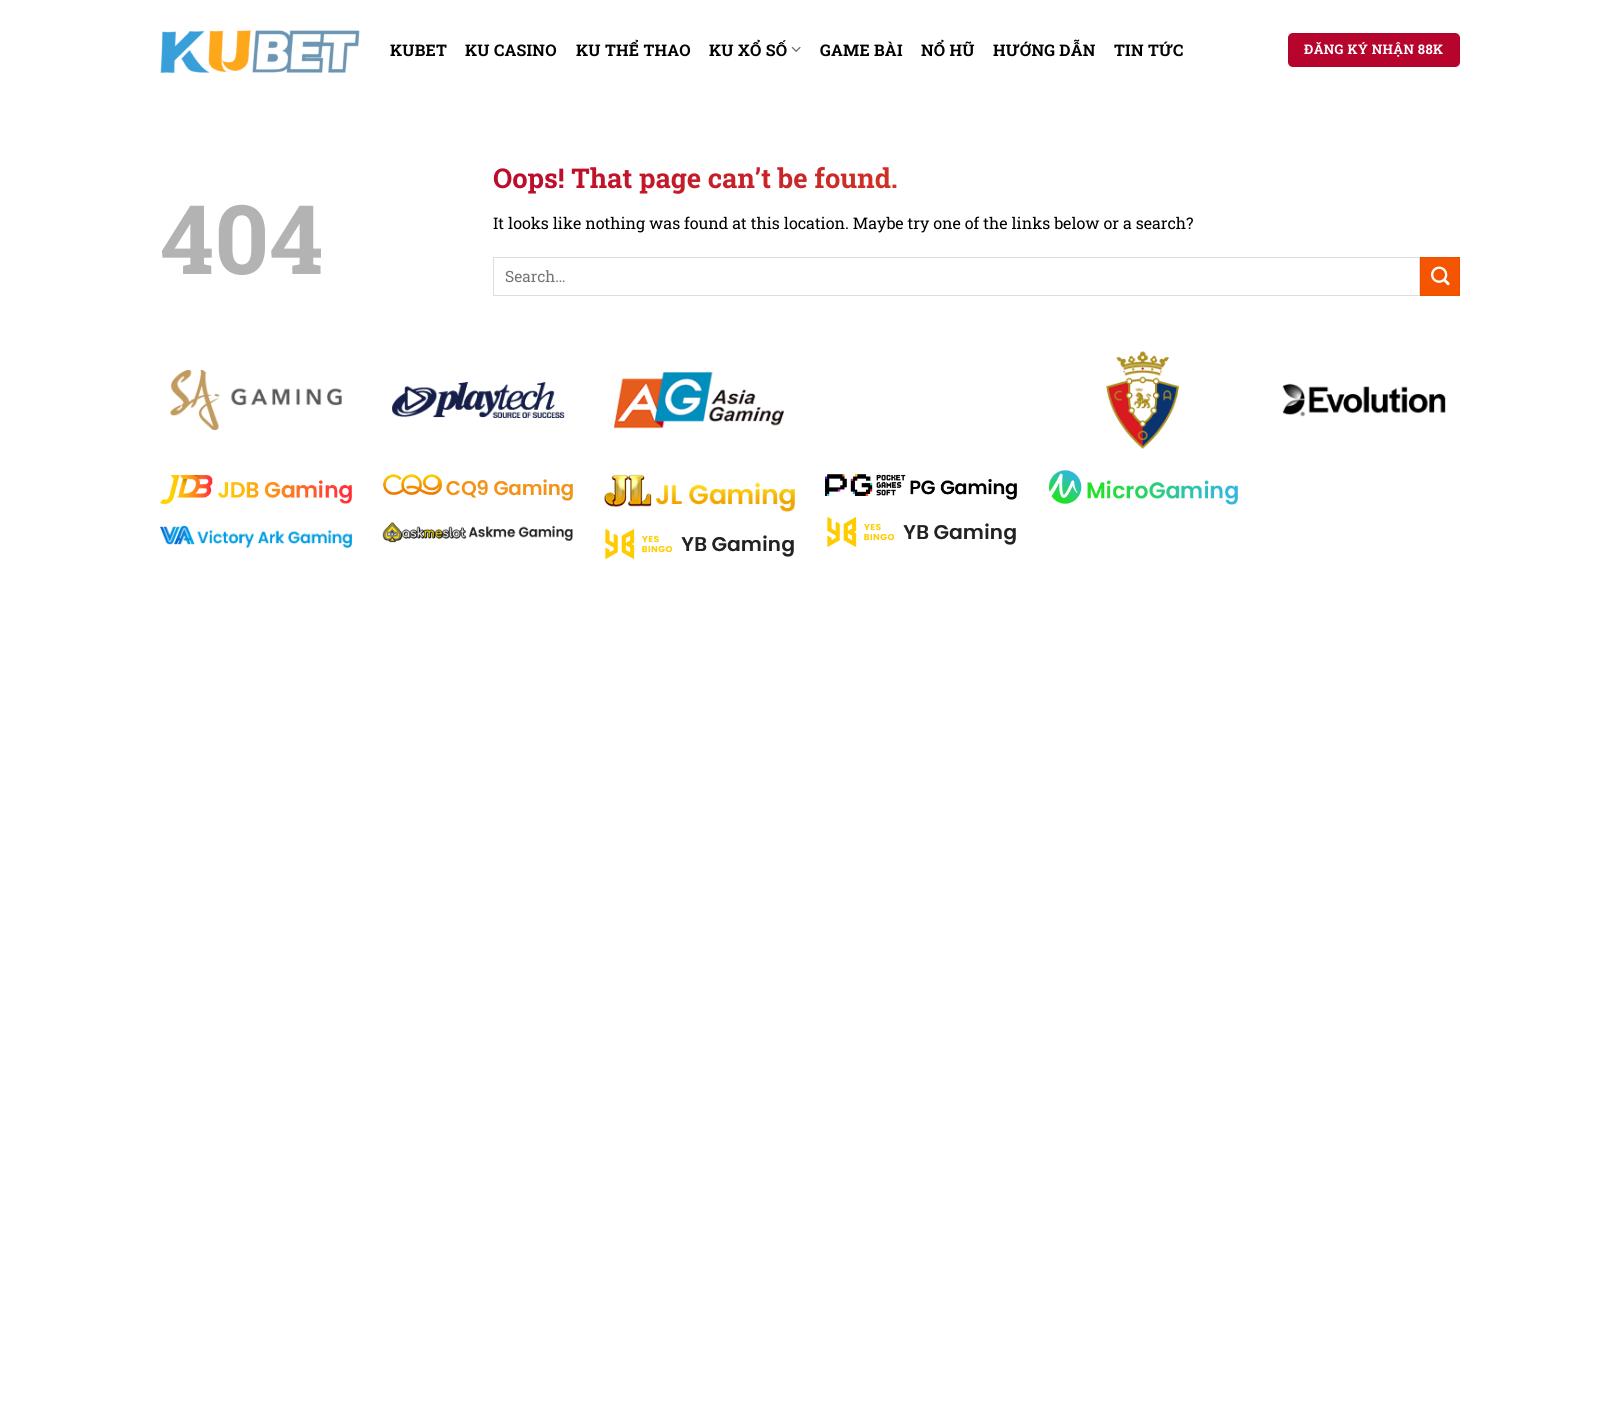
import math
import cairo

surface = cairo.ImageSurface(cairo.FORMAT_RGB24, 1620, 1402)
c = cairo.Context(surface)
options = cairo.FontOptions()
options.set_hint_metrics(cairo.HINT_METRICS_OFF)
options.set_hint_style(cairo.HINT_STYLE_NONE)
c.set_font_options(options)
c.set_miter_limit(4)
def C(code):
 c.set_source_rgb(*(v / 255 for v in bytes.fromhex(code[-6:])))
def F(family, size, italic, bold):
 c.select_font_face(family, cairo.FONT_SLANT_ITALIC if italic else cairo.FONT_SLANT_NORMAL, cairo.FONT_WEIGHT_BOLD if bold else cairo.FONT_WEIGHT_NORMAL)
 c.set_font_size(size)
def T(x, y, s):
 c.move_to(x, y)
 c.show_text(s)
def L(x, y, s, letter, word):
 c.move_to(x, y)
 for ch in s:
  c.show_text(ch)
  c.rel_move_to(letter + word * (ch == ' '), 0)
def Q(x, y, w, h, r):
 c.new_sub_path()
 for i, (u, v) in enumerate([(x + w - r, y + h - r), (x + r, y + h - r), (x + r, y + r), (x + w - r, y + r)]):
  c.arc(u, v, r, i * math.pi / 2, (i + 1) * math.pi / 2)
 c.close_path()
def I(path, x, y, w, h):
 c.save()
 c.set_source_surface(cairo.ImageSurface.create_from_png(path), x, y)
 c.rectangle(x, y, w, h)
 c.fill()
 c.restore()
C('ffffff')
c.paint()
I('1.png',160,30,200,44)
F('Roboto Slab',16,0,1)
C('000000')
L(390,56,'KUBET',.25,0)
L(465,56,'KU CASINO',.25,0)
L(576,56,'KU THỂ THAO',.25,0)
L(709,56,'KU XỔ SỐ',.25,0)
I('2.png',791,46,10,6)
L(820,56,'GAME BÀI',.25,0)
L(921,56,'NỔ HŨ',.25,0)
L(993,56,'HƯỚNG DẪN',.25,0)
L(1114,56,'TIN TỨC',.25,0)
C('b7042d')
Q(1288,33,172,34,5)
c.fill()
c.rectangle(1288.5,33.5,171,33)
c.set_source_rgba(0,0,0,0.05)
c.set_line_width(1)
c.stroke()
F('Roboto Slab',13.25,0,1)
C('ffffff')
L(1304,54,'ĐĂNG KÝ NHẬN 88K',.4,0)
F('Roboto Slab',96,0,1)
C('b3b3b3')
T(160,274,'404')
F('Roboto Slab',27.25,0,1)
gradient = cairo.LinearGradient(756,-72,1196,428)
gradient.add_color_stop_rgba(.07,0.737,0.051,0.173,1)
gradient.add_color_stop_rgba(.86,0.902,0.373,0.118,1)
c.set_source(gradient)
T(493,188,'Oops! That page can’t be found.')
F('Roboto Slab',16,0,0)
C('000000')
T(493,229,'It looks like nothing was found at this location. Maybe try one of the links below or a search?')
c.rectangle(493.5,257.5,926,38)
C('dddddd')
c.stroke()
F('Roboto Slab',15.5,0,0)
C('757575')
T(505,282,'Search…')
C('f55500')
c.rectangle(1420.5,257.5,39,38)
c.fill_preserve()
C('e95100')
c.stroke()
I('3.png',1431,266,19,20)
I('4.png',170,370,172,60)
I('5.png',160,475,192,29)
I('6.png',160,525,192,23)
I('7.png',391,382,174,36)
I('8.png',383,474,190,27)
I('9.png',382,522,191,21)
I('10.png',614,371,170,58)
I('11.png',604,474,191,38)
I('12.png',605,529,189,30)
I('13.png',1106,351,73,98)
I('14.png',1049,470,189,35)
I('15.png',1282,383,164,34)
I('16.png',825,474,192,26)
I('12.png',827,517,189,30)
surface.write_to_png('o.png')
